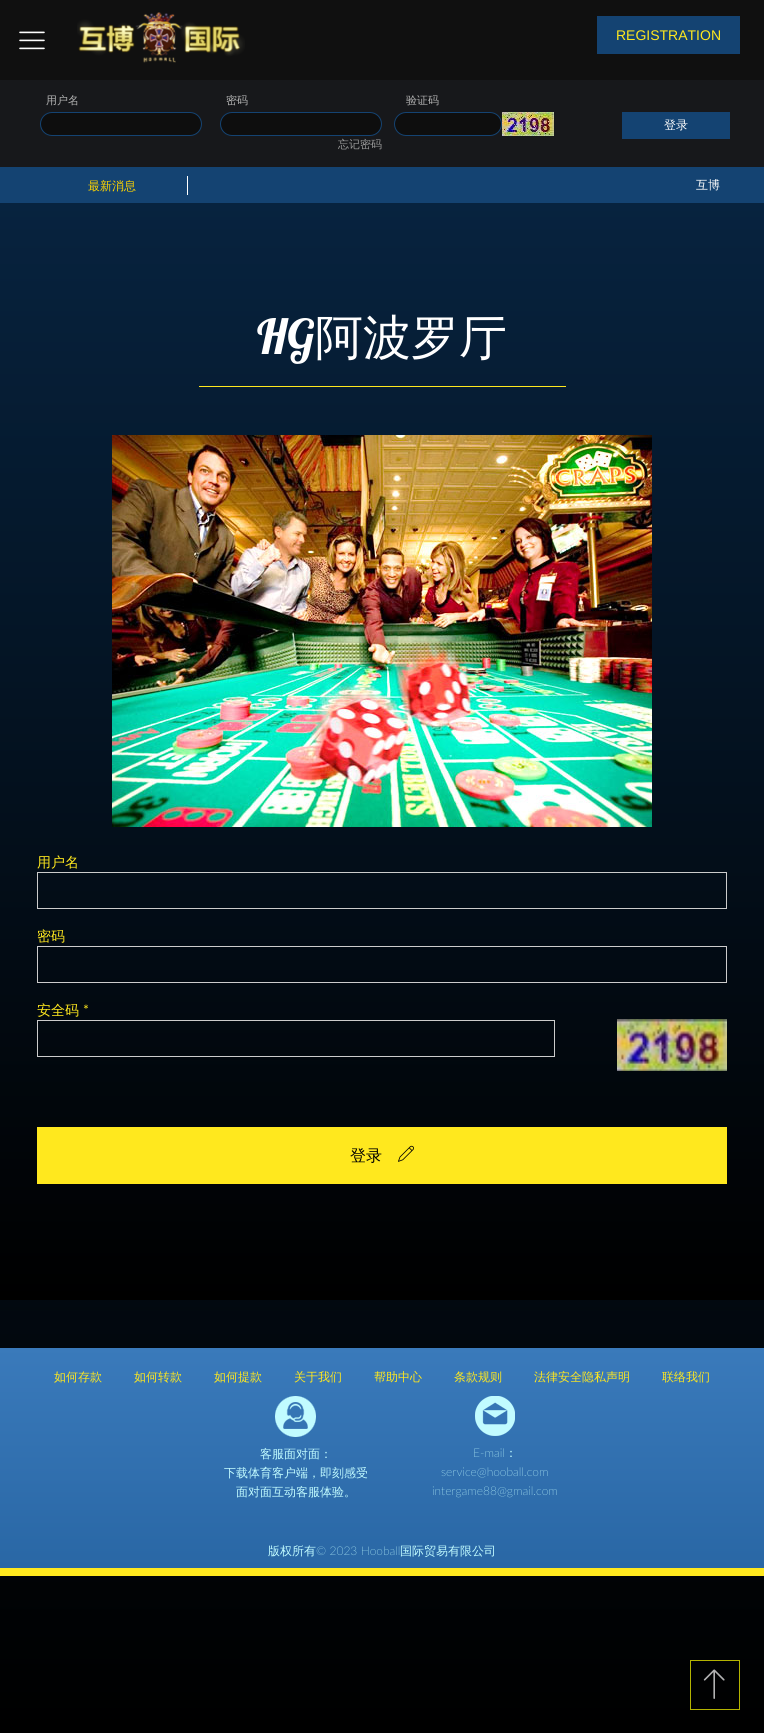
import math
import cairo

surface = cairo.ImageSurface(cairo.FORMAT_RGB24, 764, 1733)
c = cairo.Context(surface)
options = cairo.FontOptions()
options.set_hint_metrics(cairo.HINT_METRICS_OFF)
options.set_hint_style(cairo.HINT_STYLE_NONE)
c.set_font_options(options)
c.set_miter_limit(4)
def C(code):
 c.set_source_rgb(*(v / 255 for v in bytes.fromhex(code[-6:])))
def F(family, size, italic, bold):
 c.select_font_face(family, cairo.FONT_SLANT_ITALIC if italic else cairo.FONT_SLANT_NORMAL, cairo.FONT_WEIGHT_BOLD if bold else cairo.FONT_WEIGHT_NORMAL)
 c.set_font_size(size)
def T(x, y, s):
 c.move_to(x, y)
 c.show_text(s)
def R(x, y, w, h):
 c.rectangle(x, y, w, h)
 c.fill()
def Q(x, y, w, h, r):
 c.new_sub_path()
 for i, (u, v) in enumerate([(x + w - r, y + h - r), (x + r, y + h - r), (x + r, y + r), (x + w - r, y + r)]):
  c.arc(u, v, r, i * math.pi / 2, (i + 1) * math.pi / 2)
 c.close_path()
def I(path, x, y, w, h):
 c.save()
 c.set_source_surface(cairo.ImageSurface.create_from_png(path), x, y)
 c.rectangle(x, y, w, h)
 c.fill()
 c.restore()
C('ffffff')
c.paint()
gradient = cairo.LinearGradient(382,0,382,1733)
gradient.add_color_stop_rgba(0,0.027,0.137,0.247,1)
gradient.add_color_stop_rgba(1,0,0,0,1)
c.set_source(gradient)
R(0,1300,764,433)
C('101010')
R(0,0,764,80)
I('1.png',19,31,26,19)
I('2.png',77,12,168,51)
C('144372')
R(597,16,143,38)
F('Liberation Sans',14,0,0)
C('ffe81e')
T(616,40,'REGISTRATION')
C('17181b')
R(0,80,764,87)
F('WenQuanYi Zen Hei Medium',11,0,0)
C('b3b3b3')
T(46,104,'用户名')
C('0e0e0e')
Q(40.5,112.5,161,23,11.5)
c.fill_preserve()
C('144372')
c.set_line_width(1)
c.stroke()
C('b3b3b3')
T(226,104,'密码')
C('0e0e0e')
Q(220.5,112.5,161,23,11.5)
c.fill_preserve()
C('144372')
c.stroke()
C('9a9a9a')
T(338,148,'忘记密码')
C('b3b3b3')
T(406,104,'验证码')
C('0e0e0e')
Q(394.5,112.5,107,23,11.5)
c.fill_preserve()
C('144372')
c.stroke()
I('3.png',502,112,52,24)
R(622,112,108,27)
F('WenQuanYi Zen Hei Medium',12,0,0)
C('ffffff')
T(664,129,'登录')
C('144372')
R(0,167,764,36)
C('ffffff')
R(187,176,1,19)
C('ffd500')
T(88,190,'最新消息')
C('ffffff')
T(696,189,'互博')
gradient = cairo.LinearGradient(382,203,382,1300)
gradient.add_color_stop_rgba(0,0.027,0.137,0.247,1)
gradient.add_color_stop_rgba(1,0,0,0,1)
c.set_source(gradient)
R(0,203,764,1097)
C('ffe81e')
R(199,386,367,1)
F('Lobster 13',48,0,0)
C('ffffff')
T(257,354,'HG')
F('WenQuanYi Zen Hei Medium',48,0,0)
T(315,354,'阿波罗厅')
I('4.png',112,435,540,392)
F('WenQuanYi Zen Hei Medium',14,0,0)
C('ffe81e')
T(37,867,'用户名')
c.rectangle(37.5,872.5,689,36)
C('cccccc')
c.stroke()
C('ffe81e')
T(37,941,'密码')
c.rectangle(37.5,946.5,689,36)
C('cccccc')
c.stroke()
C('ffe81e')
T(37,1015,'安全码')
F('Lato',14,0,0)
T(83,1015,'*')
c.rectangle(37.5,1020.5,517,36)
C('cccccc')
c.stroke()
I('5.png',617,1019,110,52)
C('ffe81e')
R(37,1127,690,57)
F('WenQuanYi Zen Hei Medium',16,0,0)
C('000000')
T(350,1161,'登录')
I('6.png',398,1145,16,17)
gradient = cairo.LinearGradient(382,1348,382,1568)
gradient.add_color_stop_rgba(0,0.227,0.478,0.733,1)
gradient.add_color_stop_rgba(1,0.161,0.404,0.647,1)
c.set_source(gradient)
R(0,1348,764,220)
F('WenQuanYi Zen Hei Medium',12,0,0)
C('ffe81e')
T(54,1381,'如何存款')
T(134,1381,'如何转款')
T(214,1381,'如何提款')
T(294,1381,'关于我们')
T(374,1381,'帮助中心')
T(454,1381,'条款规则')
T(534,1381,'法律安全隐私声明')
T(662,1381,'联络我们')
I('7.png',275,1396,41,41)
C('c1fbff')
T(260,1458,'客服面对面：')
T(224,1477,'下载体育客户端，即刻感受')
T(236,1496,'面对面互动客服体验。')
I('8.png',475,1396,40,40)
F('Lato Thin',12,0,0)
T(473,1457,'E-mail')
F('WenQuanYi Zen Hei Medium',12,0,0)
T(505,1457,'：')
F('Lato Thin',12,0,0)
T(441,1476,'service@hooball.com')
T(432,1495,'intergame88@gmail.com')
F('WenQuanYi Zen Hei Medium',12,0,0)
T(268,1555,'版权所有')
F('Lato Thin',12,0,0)
T(316,1555,'© 2023 Hooball')
F('WenQuanYi Zen Hei Medium',12,0,0)
T(400,1555,'国际贸易有限公司')
C('ffe81e')
R(0,1568,764,8)
c.rectangle(690.5,1660.5,49,49)
C('b3b301')
c.stroke()
I('9.png',703,1669,22,30)
surface.write_to_png('o.png')
